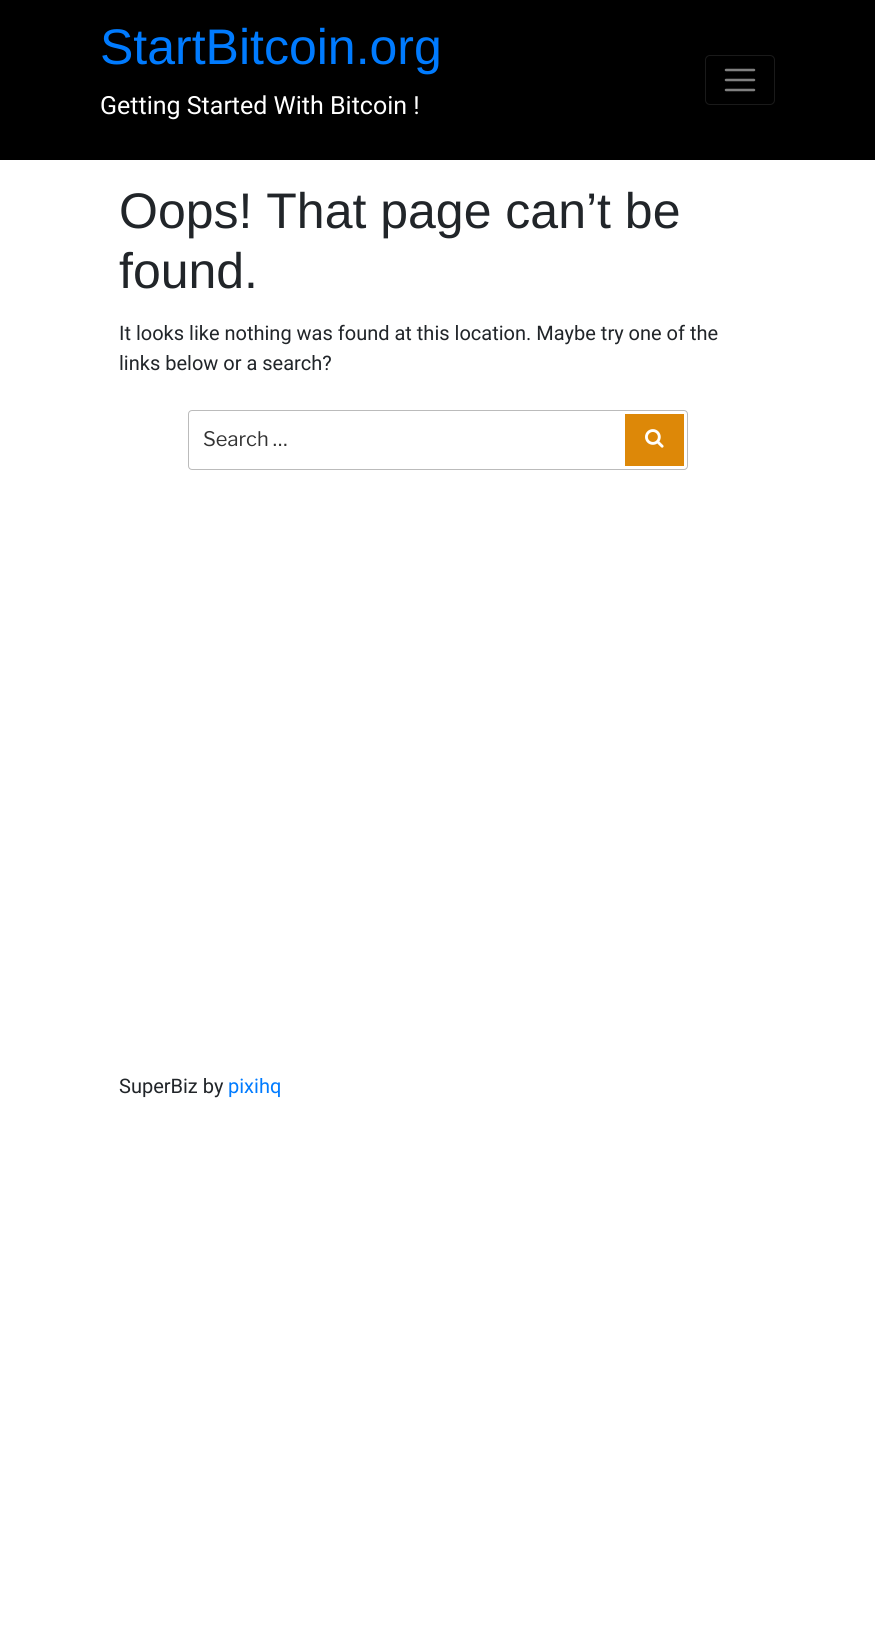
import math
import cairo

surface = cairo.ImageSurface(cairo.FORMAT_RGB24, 875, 1639)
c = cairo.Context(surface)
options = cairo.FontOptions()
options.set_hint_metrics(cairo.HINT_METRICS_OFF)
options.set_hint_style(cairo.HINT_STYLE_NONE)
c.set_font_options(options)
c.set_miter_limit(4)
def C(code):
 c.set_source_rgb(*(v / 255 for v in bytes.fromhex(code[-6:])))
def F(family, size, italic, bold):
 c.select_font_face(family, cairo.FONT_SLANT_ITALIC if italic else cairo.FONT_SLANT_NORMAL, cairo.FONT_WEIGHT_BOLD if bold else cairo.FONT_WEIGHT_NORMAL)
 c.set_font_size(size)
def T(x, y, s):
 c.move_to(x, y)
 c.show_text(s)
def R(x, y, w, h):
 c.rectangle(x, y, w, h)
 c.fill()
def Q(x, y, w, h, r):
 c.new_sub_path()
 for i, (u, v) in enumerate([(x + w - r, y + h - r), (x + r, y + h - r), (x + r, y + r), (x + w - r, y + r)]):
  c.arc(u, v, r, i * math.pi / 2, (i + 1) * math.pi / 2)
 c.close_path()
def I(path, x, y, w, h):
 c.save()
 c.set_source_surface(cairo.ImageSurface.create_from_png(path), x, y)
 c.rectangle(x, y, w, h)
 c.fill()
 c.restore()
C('ffffff')
c.paint()
C('000000')
R(0,0,875,160)
F('Liberation Sans',50,0,0)
C('007bff')
T(100,64,'StartBitcoin.org')
F('Roboto',25,0,0)
C('ffffff')
T(100,114,'Getting Started With Bitcoin !')
Q(705.5,55.5,69,49,4.5)
C('1a1a1a')
c.set_line_width(1)
c.stroke()
c.new_path()
c.move_to(726,70)
c.line_to(754,70)
c.move_to(726,80)
c.line_to(754,80)
c.move_to(726,90)
c.line_to(754,90)
C('808080')
c.set_line_width(2.5)
c.set_line_cap(cairo.LINE_CAP_ROUND)
c.stroke()
F('Liberation Sans',50,0,0)
C('212529')
T(119,228,'Oops! That page can’t be')
T(119,288,'found.')
F('Roboto',20,0,0)
T(119,340,'It looks like nothing was found at this location. Maybe try one of the')
T(119,370,'links below or a search?')
Q(188.5,410.5,499,59,3.5)
C('bbbbbb')
c.set_line_width(1)
c.set_line_cap(cairo.LINE_CAP_BUTT)
c.stroke()
F('Libre Franklin',20,0,0)
C('333333')
T(203,446,'Search …')
C('dd8808')
R(625,414,59,52)
I('1.png',645,429,19,19)
F('Roboto',20,0,0)
C('212529')
T(119,1093,'SuperBiz by')
C('007bff')
T(228,1093,'pixihq')
surface.write_to_png('o.png')
